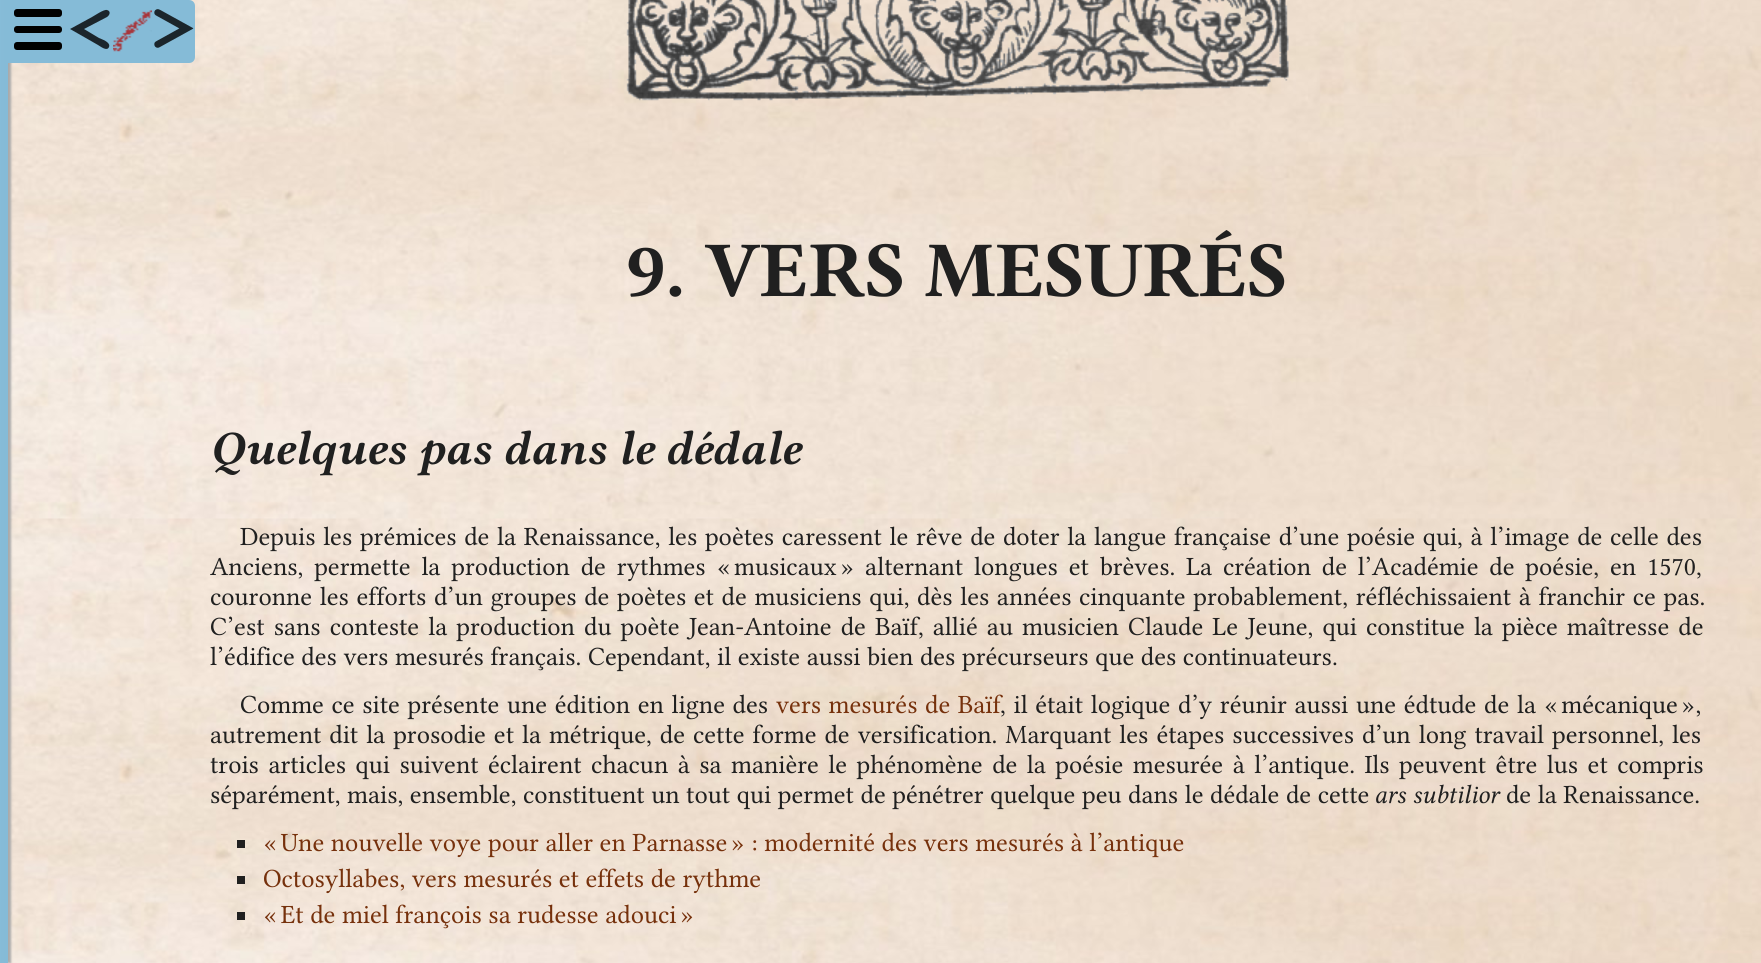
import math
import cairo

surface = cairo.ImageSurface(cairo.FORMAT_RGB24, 1761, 963)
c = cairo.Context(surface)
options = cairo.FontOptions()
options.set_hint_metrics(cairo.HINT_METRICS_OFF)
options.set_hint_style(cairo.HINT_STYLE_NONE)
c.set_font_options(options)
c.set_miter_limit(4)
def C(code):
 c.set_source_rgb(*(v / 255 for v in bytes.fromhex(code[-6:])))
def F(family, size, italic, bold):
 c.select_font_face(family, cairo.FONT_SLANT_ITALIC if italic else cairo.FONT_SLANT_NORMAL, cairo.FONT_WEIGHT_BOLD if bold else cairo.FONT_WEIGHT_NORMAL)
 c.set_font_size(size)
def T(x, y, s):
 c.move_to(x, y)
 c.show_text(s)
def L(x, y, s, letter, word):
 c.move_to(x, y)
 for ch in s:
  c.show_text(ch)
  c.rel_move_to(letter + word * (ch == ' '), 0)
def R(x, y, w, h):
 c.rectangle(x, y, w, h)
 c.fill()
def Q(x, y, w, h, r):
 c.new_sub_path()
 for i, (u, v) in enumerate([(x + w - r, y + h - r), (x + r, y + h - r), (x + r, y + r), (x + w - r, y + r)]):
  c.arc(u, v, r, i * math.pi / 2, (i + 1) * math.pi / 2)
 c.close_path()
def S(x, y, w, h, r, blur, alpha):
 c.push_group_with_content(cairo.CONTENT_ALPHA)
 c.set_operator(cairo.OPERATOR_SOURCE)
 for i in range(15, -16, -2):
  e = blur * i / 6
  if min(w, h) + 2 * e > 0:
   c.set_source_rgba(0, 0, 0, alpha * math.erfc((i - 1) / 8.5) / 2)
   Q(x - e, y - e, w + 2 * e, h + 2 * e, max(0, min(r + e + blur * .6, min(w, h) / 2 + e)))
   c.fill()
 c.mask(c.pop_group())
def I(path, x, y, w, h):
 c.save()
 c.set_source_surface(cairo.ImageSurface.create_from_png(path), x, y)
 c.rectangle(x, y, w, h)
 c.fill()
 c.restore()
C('ffffff')
c.paint()
I('1.png',8,0,1753,963)
C('aaaaaa')
S(-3,0,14,963,0,1,1)
gradient = cairo.LinearGradient(-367,482,7.5,482)
gradient.add_color_stop_rgba(0,0.706,0.875,0.965,1)
gradient.add_color_stop_rgba(1,0.522,0.733,0.843,1)
c.set_source(gradient)
R(0,0,8,963)
C('85bbd7')
c.new_path()
c.move_to(8,0)
c.line_to(189,0)
c.curve_to(192.5,0,195,2.5,195,6)
c.line_to(195,57)
c.curve_to(195,60.5,192.5,63,189,63)
c.line_to(8,63)
c.close_path()
c.fill()
C('010101')
Q(14,9,48,8,3)
c.fill()
Q(14,26,48,7,3)
c.fill()
Q(14,42,48,8,3)
c.fill()
C('1b252b')
c.new_path()
c.move_to(84,29)
c.line_to(99,38)
c.curve_to(101,39,111,42,109,47)
c.curve_to(107,52,100,46,98,45)
c.line_to(70,29)
c.line_to(92,17)
c.curve_to(94,16,104,9,107,10)
c.curve_to(111,11,110,15,107,17)
c.close_path()
c.fill()
I('2.png',113,10,39,42)
I('3.png',154,9,40,39)
I('4.png',626,0,663,101)
F('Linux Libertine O',79.25,0,1)
C('202020')
T(625,296,'9. VERS MESURÉS')
F('Linux Libertine O',48,1,1)
T(210,464,'Quelques pas dans le dédale')
F('Linux Libertine O',26.4,0,0)
L(240,545,'Depuis les prémices de la Renaissance, les poètes caressent le rêve de doter la langue française d’une poésie qui, à l’image de celle des',0,1.1)
L(210,575,'Anciens, permette la production de rythmes « musicaux » alternant longues et brèves. La création de l’Académie de poésie, en 1570,',0,4.25)
L(210,605,'couronne les efforts d’un groupes de poètes et de musiciens qui, dès les années cinquante probablement, réfléchissaient à franchir ce pas.',0,1.05)
L(210,635,'C’est sans conteste la production du poète Jean-Antoine de Baïf, allié au musicien Claude Le Jeune, qui constitue la pièce maîtresse de',0,2.5)
T(210,665,'l’édifice des vers mesurés français. Cependant, il existe aussi bien des précurseurs que des continuateurs.')
L(240,713,'Comme ce site présente une édition en ligne des',0,1.05)
C('76310c')
L(776,713,'vers mesurés de Baïf',0,1)
C('202020')
L(1000,713,', il était logique d’y réunir aussi une édtude de la « mécanique »,',0,1.1)
L(210,743,'autrement dit la prosodie et la métrique, de cette forme de versification. Marquant les étapes successives d’un long travail personnel, les',0,1.4)
L(210,773,'trois articles qui suivent éclairent chacun à sa manière le phénomène de la poésie mesurée à l’antique. Ils peuvent être lus et compris',0,2.9)
T(210,803,'séparément, mais, ensemble, constituent un tout qui permet de pénétrer quelque peu dans le dédale de cette')
F('Linux Libertine O',26.4,1,0)
T(1374,803,'ars subtilior')
F('Linux Libertine O',26.4,0,0)
T(1506,803,'de la Renaissance.')
R(237,840,8,8)
C('76310c')
T(263,851,'« Une nouvelle voye pour aller en Parnasse » : modernité des vers mesurés à l’antique')
C('202020')
R(237,876,8,8)
C('76310c')
T(263,887,'Octosyllabes, vers mesurés et effets de rythme')
C('202020')
R(237,912,8,8)
C('76310c')
T(263,923,'« Et de miel françois sa rudesse adouci »')
surface.write_to_png('o.png')
